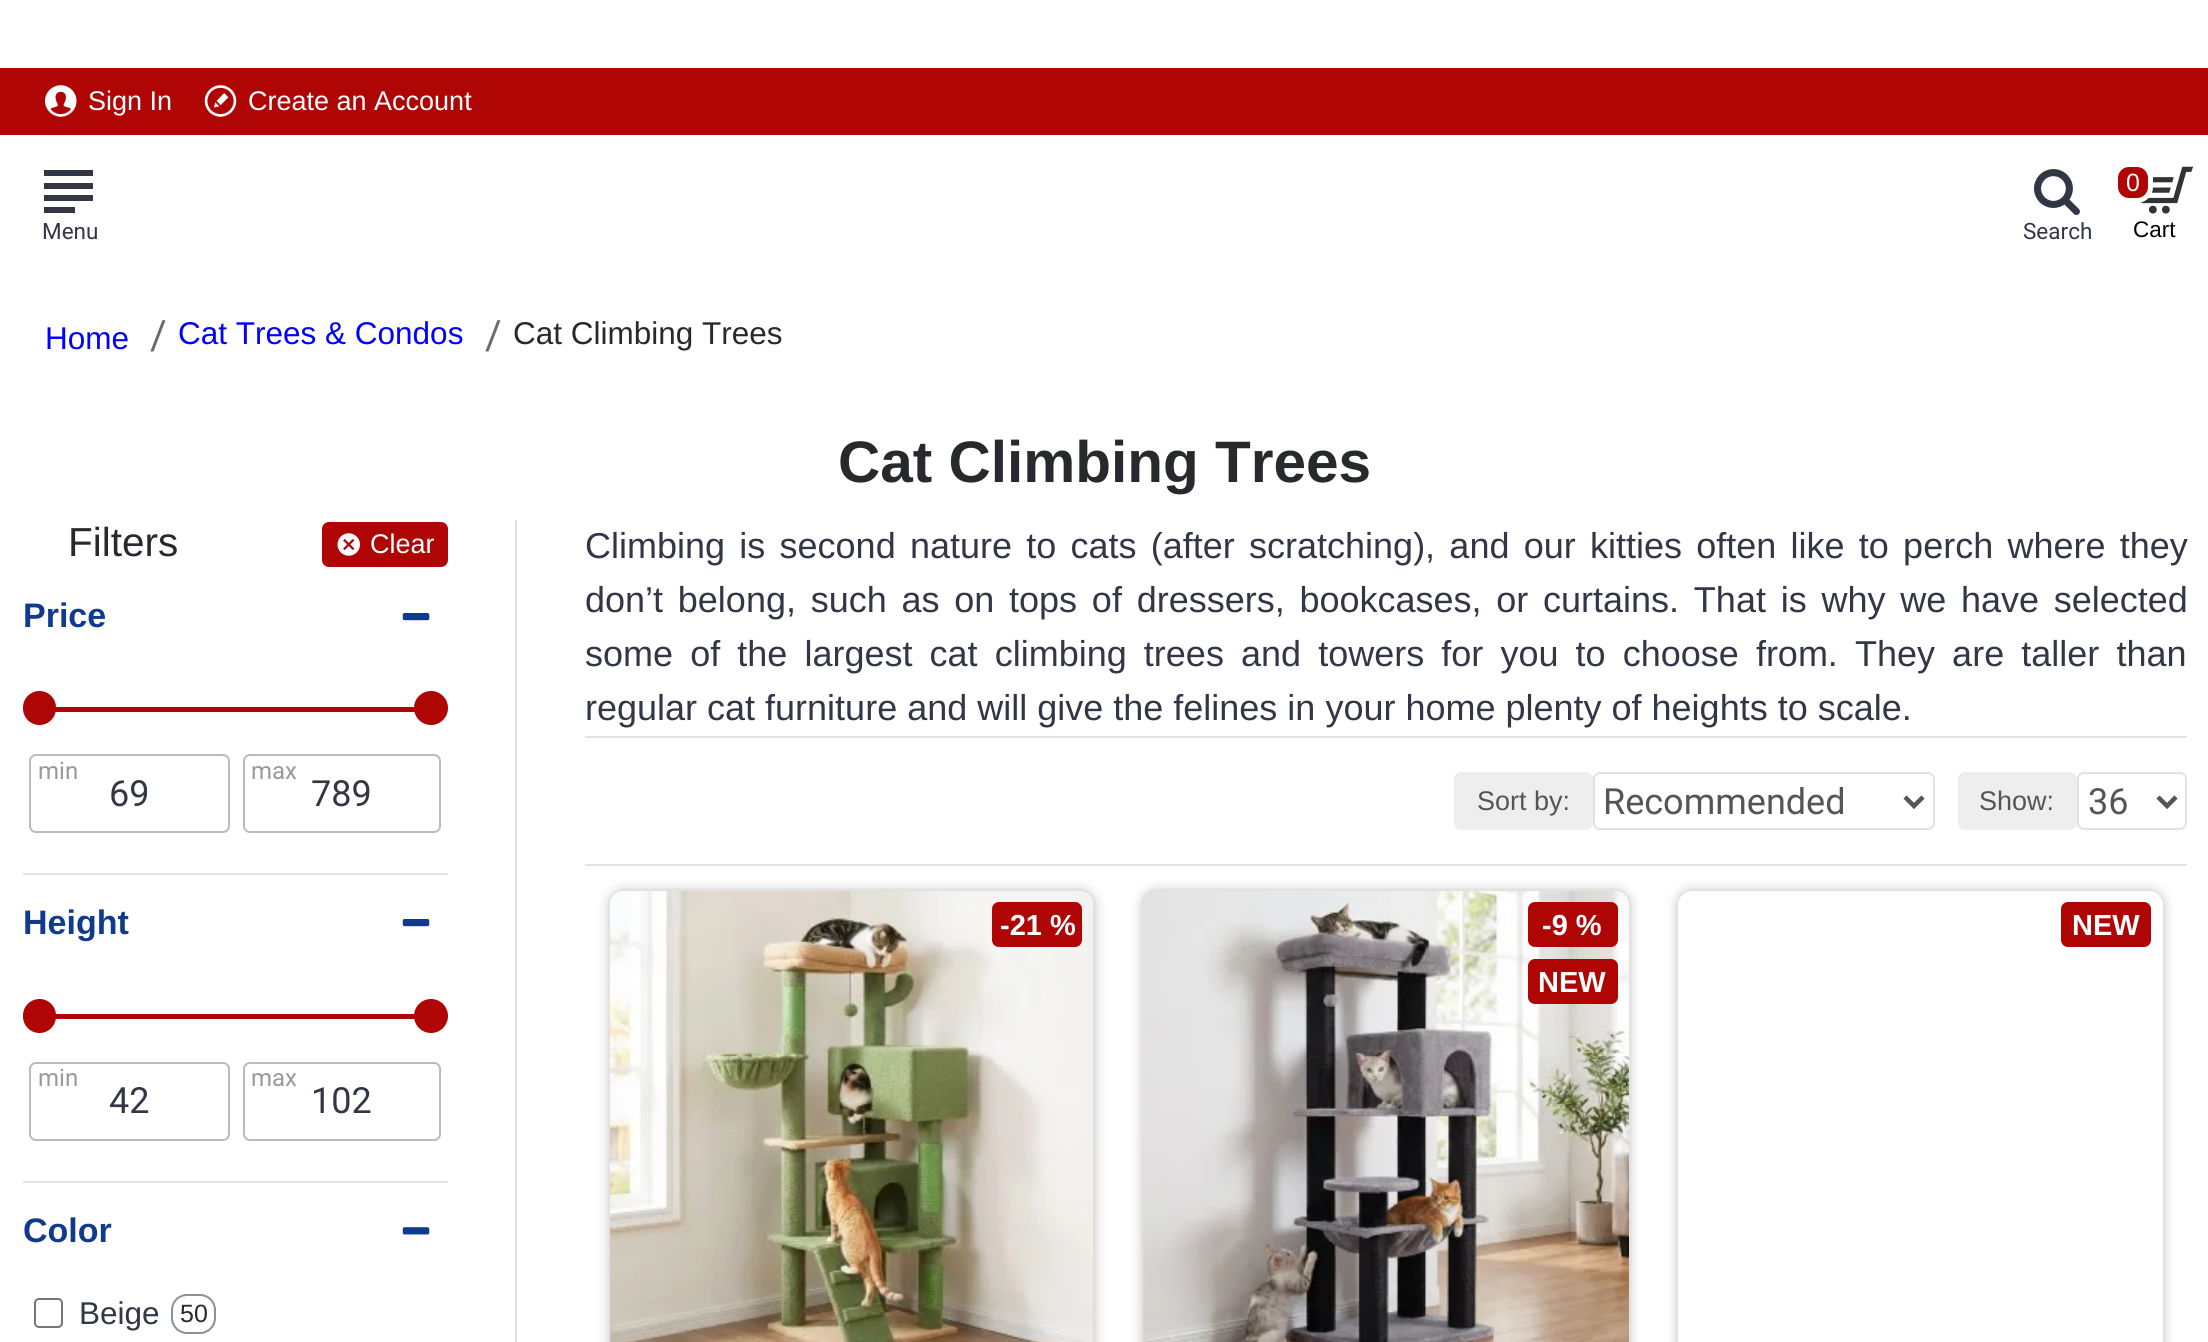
import math
import cairo

surface = cairo.ImageSurface(cairo.FORMAT_RGB24, 2208, 1342)
c = cairo.Context(surface)
options = cairo.FontOptions()
options.set_hint_metrics(cairo.HINT_METRICS_OFF)
options.set_hint_style(cairo.HINT_STYLE_NONE)
c.set_font_options(options)
c.set_miter_limit(4)
def C(code):
 c.set_source_rgb(*(v / 255 for v in bytes.fromhex(code[-6:])))
def F(family, size, italic, bold):
 c.select_font_face(family, cairo.FONT_SLANT_ITALIC if italic else cairo.FONT_SLANT_NORMAL, cairo.FONT_WEIGHT_BOLD if bold else cairo.FONT_WEIGHT_NORMAL)
 c.set_font_size(size)
def T(x, y, s):
 c.move_to(x, y)
 c.show_text(s)
def L(x, y, s, letter, word):
 c.move_to(x, y)
 for ch in s:
  c.show_text(ch)
  c.rel_move_to(letter + word * (ch == ' '), 0)
def R(x, y, w, h):
 c.rectangle(x, y, w, h)
 c.fill()
def Q(x, y, w, h, r):
 c.new_sub_path()
 for i, (u, v) in enumerate([(x + w - r, y + h - r), (x + r, y + h - r), (x + r, y + r), (x + w - r, y + r)]):
  c.arc(u, v, r, i * math.pi / 2, (i + 1) * math.pi / 2)
 c.close_path()
def S(x, y, w, h, r, blur, alpha):
 c.push_group_with_content(cairo.CONTENT_ALPHA)
 c.set_operator(cairo.OPERATOR_SOURCE)
 for i in range(15, -16, -2):
  e = blur * i / 6
  if min(w, h) + 2 * e > 0:
   c.set_source_rgba(0, 0, 0, alpha * math.erfc((i - 1) / 8.5) / 2)
   Q(x - e, y - e, w + 2 * e, h + 2 * e, max(0, min(r + e + blur * .6, min(w, h) / 2 + e)))
   c.fill()
 c.mask(c.pop_group())
def I(path, x, y, w, h):
 c.save()
 c.set_source_surface(cairo.ImageSurface.create_from_png(path), x, y)
 c.rectangle(x, y, w, h)
 c.fill()
 c.restore()
C('ffffff')
c.paint()
C('af0505')
R(0,68,2208,67)
I('1.png',45,85,32,32)
F('Liberation Sans',27,0,0)
C('ffffff')
T(88,110,'Sign In')
I('2.png',204,85,33,32)
T(248,110,'Create an Account')
C('333745')
c.new_path()
c.move_to(44,170)
c.line_to(93,170)
c.line_to(93,176)
c.line_to(44,176)
c.close_path()
c.move_to(44,201)
c.line_to(44,195)
c.line_to(93,195)
c.line_to(93,201)
c.close_path()
c.move_to(93,183)
c.line_to(93,189)
c.line_to(44,189)
c.line_to(44,183)
c.close_path()
c.move_to(75,207)
c.line_to(75,213)
c.line_to(44,213)
c.line_to(44,207)
c.close_path()
c.fill()
F('Roboto',22.5,0,0)
T(42,239,'Menu')
I('3.png',2034,169,46,46)
T(2023,239,'Search')
I('4.png',2141,166,53,48)
C('af0505')
Q(2115.5,164.5,35,36,13.5)
c.fill_preserve()
C('ffffff')
c.set_line_width(5)
c.stroke()
F('Liberation Sans',25,0,0)
T(2126,191,'0')
F('Liberation Sans',22.5,0,0)
C('000000')
T(2133,237,'Cart')
F('Liberation Sans',31.5,0,0)
C('0000ff')
T(45,349,'Home')
F('Roboto',40.5,0,0)
C('696973')
T(150,349,'/')
F('Liberation Sans',31.5,0,0)
C('0000ff')
T(178,344,'Cat Trees & Condos')
F('Roboto',40.5,0,0)
C('696973')
T(485,349,'/')
F('Liberation Sans',31.5,0,0)
C('28292d')
T(513,344,'Cat Climbing Trees')
F('Liberation Sans',58.5,0,1)
T(838,482,'Cat Climbing Trees')
C('e2e2e2')
R(515,520,2,822)
F('Liberation Sans',40.5,0,0)
C('28292d')
T(68,556,'Filters')
C('af0505')
Q(322,522,126,45,7)
c.fill()
I('5.png',337,533,23,23)
F('Liberation Sans',27,0,0)
C('ffffff')
T(370,553,'Clear')
F('Liberation Sans',34,0,1)
C('0f3a8d')
T(23,627,'Price')
I('6.png',402,613,28,8)
C('af0505')
c.new_path()
c.move_to(52,707)
c.line_to(421,707)
c.curve_to(421,707,438,708,430,711)
c.line_to(421,712)
c.line_to(52,712)
c.curve_to(37,711,37,707,52,707)
c.close_path()
c.fill()
Q(23,691,33,34,16.5)
c.fill()
c.arc(431,708,17,0,2 * math.pi)
c.fill()
Q(30,755,199,77,6)
C('bbbbbb')
c.set_line_width(2)
c.stroke()
F('Roboto',24,0,0)
C('999999')
T(38,779,'min')
Q(244,755,196,77,6)
C('bbbbbb')
c.stroke()
C('999999')
T(251,779,'max')
F('Roboto',36,0,0)
C('333745')
T(109,806,'69')
T(311,806,'789')
C('e2e2e2')
R(23,873,425,2)
F('Liberation Sans',34,0,1)
C('0f3a8d')
T(23,934,'Height')
I('6.png',402,919,28,8)
C('af0505')
c.new_path()
c.move_to(52,1014)
c.line_to(421,1014)
c.curve_to(421,1014,438,1015,430,1018)
c.line_to(421,1019)
c.line_to(52,1019)
c.curve_to(37,1019,37,1014,52,1014)
c.close_path()
c.fill()
Q(23,999,33,34,16.5)
c.fill()
c.arc(431,1016,17,0,2 * math.pi)
c.fill()
Q(30,1063,199,77,6)
C('bbbbbb')
c.stroke()
F('Roboto',24,0,0)
C('999999')
T(38,1086,'min')
Q(244,1063,196,77,6)
C('bbbbbb')
c.stroke()
C('999999')
T(251,1086,'max')
F('Roboto',36,0,0)
C('333745')
T(109,1113,'42')
T(311,1113,'102')
C('e2e2e2')
R(23,1181,425,2)
F('Liberation Sans',34,0,1)
C('0f3a8d')
T(23,1242,'Color')
I('7.png',402,1227,28,8)
Q(35,1299,27,28,4)
C('767676')
c.stroke()
F('Liberation Sans',31.5,0,0)
C('333745')
T(79,1324,'Beige')
Q(172,1295,43,38,15)
C('8b9198')
c.stroke()
F('Liberation Sans',25,0,0)
C('28292d')
T(180,1322,'50')
F('Liberation Sans',36,0,0)
C('333745')
L(585,558,'Climbing is second nature to cats (after scratching), and our kitties often like to perch where they',0,4.25)
L(585,612,'don’t belong, such as on tops of dressers, bookcases, or curtains. That is why we have selected',0,4.75)
L(585,666,'some of the largest cat climbing trees and towers for you to choose from. They are taller than',0,7.1)
T(585,720,'regular cat furniture and will give the felines in your home plenty of heights to scale.')
C('e2e2e2')
R(585,736,1602,2)
R(585,864,1602,2)
C('eeeeee')
Q(1454,772,139,58,7)
c.fill()
F('Liberation Sans',27,0,0)
C('555555')
T(1477,810,'Sort by:')
Q(1594,773,340,56,6)
C('e2e2e2')
c.stroke()
c.new_path()
c.move_to(1905,797)
c.line_to(1914,806)
c.line_to(1923,797)
C('555555')
c.set_line_width(4.5)
c.stroke()
F('Roboto',36,0,0)
T(1603,814,'Recommended')
C('eeeeee')
Q(1958,772,119,58,7)
c.fill()
F('Liberation Sans',27,0,0)
C('555555')
T(1979,810,'Show:')
Q(2078,773,108,56,6)
C('e2e2e2')
c.set_line_width(2)
c.stroke()
c.new_path()
c.move_to(2158,797)
c.line_to(2167,806)
c.line_to(2176,797)
C('555555')
c.set_line_width(4.5)
c.stroke()
F('Roboto',36,0,0)
T(2088,814,'36')
C('000000')
S(608,889,488,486,16,5.5,.2)
Q(609,890,486,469,15)
C('e2e2e2')
c.set_line_width(2)
c.stroke()
I('8.png',610,891,483,451)
C('af0505')
Q(992,902,90,45,7)
c.fill()
F('Liberation Sans',29,0,1)
C('ffffff')
T(1000,935,'-21 %')
C('000000')
S(1141,889,490,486,16,5.5,.2)
Q(1142,890,488,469,15)
C('e2e2e2')
c.stroke()
I('9.png',1143,891,486,451)
C('af0505')
Q(1528,902,90,45,7)
c.fill()
C('ffffff')
T(1542,935,'-9 %')
C('af0505')
Q(1528,959,90,45,7)
c.fill()
C('ffffff')
T(1538,992,'NEW')
c.save()
c.set_fill_rule(cairo.FILL_RULE_EVEN_ODD)
c.new_path()
c.move_to(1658,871)
c.line_to(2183,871)
c.line_to(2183,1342)
c.line_to(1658,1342)
c.close_path()
c.move_to(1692,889)
c.line_to(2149,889)
c.curve_to(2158,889,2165,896,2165,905)
c.line_to(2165,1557)
c.curve_to(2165,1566,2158,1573,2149,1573)
c.line_to(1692,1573)
c.curve_to(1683,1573,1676,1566,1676,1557)
c.line_to(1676,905)
c.curve_to(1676,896,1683,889,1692,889)
c.close_path()
c.clip()
C('000000')
S(1676,889,489,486,16,5.5,.2)
c.restore()
Q(1677,890,487,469,15)
C('e2e2e2')
c.stroke()
C('af0505')
Q(2061,902,90,45,7)
c.fill()
C('ffffff')
T(2072,935,'NEW')
surface.write_to_png('o.png')
